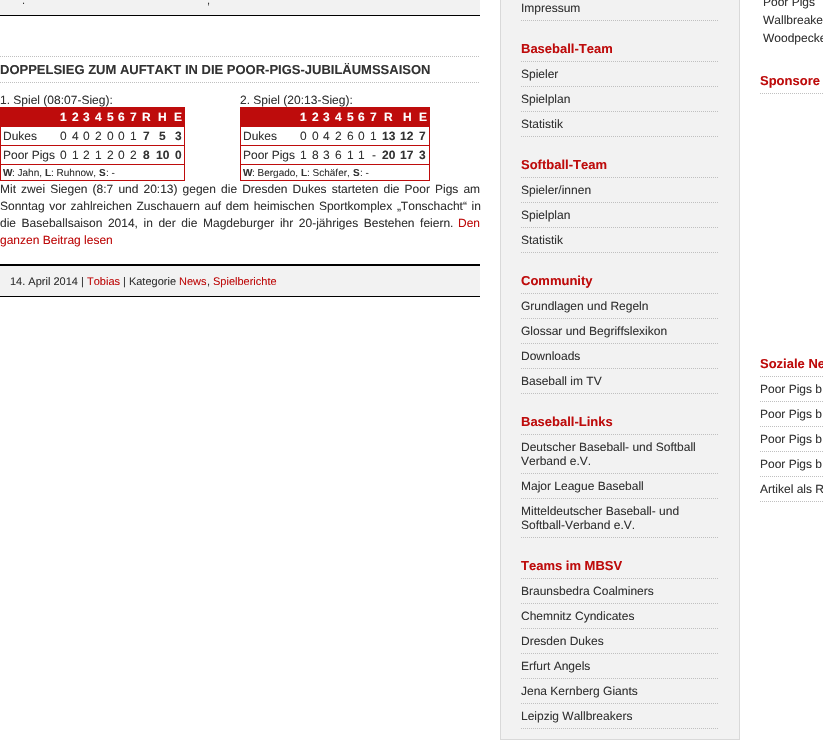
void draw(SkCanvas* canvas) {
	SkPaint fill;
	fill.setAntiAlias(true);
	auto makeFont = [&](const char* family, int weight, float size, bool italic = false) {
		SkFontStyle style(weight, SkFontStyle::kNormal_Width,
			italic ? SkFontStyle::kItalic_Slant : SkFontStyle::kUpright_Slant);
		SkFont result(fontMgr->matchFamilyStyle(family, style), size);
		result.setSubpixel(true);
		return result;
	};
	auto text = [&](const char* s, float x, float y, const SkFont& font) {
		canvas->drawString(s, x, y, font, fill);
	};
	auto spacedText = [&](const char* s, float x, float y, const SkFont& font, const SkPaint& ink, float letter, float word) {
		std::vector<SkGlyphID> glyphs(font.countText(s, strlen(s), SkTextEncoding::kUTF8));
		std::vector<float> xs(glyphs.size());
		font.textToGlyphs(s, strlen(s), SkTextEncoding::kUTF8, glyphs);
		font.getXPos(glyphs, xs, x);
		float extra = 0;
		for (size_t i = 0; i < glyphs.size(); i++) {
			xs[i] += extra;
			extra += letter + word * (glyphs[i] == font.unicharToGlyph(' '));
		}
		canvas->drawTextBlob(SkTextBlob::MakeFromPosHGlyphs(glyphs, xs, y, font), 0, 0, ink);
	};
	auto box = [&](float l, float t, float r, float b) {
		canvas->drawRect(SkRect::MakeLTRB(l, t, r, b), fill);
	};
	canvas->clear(0xFFFFFFFF);
	fill.setColor(0xFFF2F2F2);
	box(0, 0, 480, 15);
	fill.setColor(0xFF000000);
	box(0, 15, 480, 16);
	fill.setStyle(SkPaint::kStroke_Style);
	fill.setStrokeWidth(1);
	fill.setColor(0xFFC0C0C0);
	fill.setPathEffect(SkDashPathEffect::Make({{1, 1}}, 0));
	canvas->drawPath(SkPathBuilder().moveTo(0, 56.5f).lineTo(480, 56.5f).detach(), fill);
	fill.setPathEffect(nullptr);
	fill.setPathEffect(SkDashPathEffect::Make({{1, 1}}, 0));
	canvas->drawPath(SkPathBuilder().moveTo(0, 82.5f).lineTo(480, 82.5f).detach(), fill);
	fill.setPathEffect(nullptr);
	fill.setStyle(SkPaint::kFill_Style);
	fill.setColor(0xFFBE0C0C);
	box(0, 107, 185, 181);
	fill.setColor(0xFFFFFFFF);
	box(1, 127, 184, 145);
	box(1, 146, 184, 164);
	box(1, 165, 184, 180);
	fill.setColor(0xFFBE0C0C);
	box(240, 107, 430, 181);
	fill.setColor(0xFFFFFFFF);
	box(241, 127, 429, 145);
	box(241, 146, 429, 164);
	box(241, 165, 429, 180);
	fill.setColor(0xFFF2F2F2);
	box(0, 266, 480, 296);
	fill.setColor(0xFF000000);
	box(0, 264, 480, 266);
	box(0, 296, 480, 297);
	fill.setColor(0xFFF2F2F2);
	box(501, 0, 739, 739);
	fill.setColor(0xFFD9D9D9);
	box(739, 0, 740, 740);
	box(500, 739, 740, 740);
	box(500, 0, 501, 740);
	fill.setStyle(SkPaint::kStroke_Style);
	fill.setColor(0xFFC0C0C0);
	fill.setPathEffect(SkDashPathEffect::Make({{1, 1}}, 0));
	canvas->drawPath(SkPathBuilder().moveTo(521, 20.5f).lineTo(719, 20.5f).detach(), fill);
	fill.setPathEffect(nullptr);
	fill.setPathEffect(SkDashPathEffect::Make({{1, 1}}, 0));
	canvas->drawPath(SkPathBuilder().moveTo(521, 61.5f).lineTo(719, 61.5f).detach(), fill);
	fill.setPathEffect(nullptr);
	fill.setPathEffect(SkDashPathEffect::Make({{1, 1}}, 0));
	canvas->drawPath(SkPathBuilder().moveTo(521, 86.5f).lineTo(719, 86.5f).detach(), fill);
	fill.setPathEffect(nullptr);
	fill.setPathEffect(SkDashPathEffect::Make({{1, 1}}, 0));
	canvas->drawPath(SkPathBuilder().moveTo(521, 111.5f).lineTo(719, 111.5f).detach(), fill);
	fill.setPathEffect(nullptr);
	fill.setPathEffect(SkDashPathEffect::Make({{1, 1}}, 0));
	canvas->drawPath(SkPathBuilder().moveTo(521, 136.5f).lineTo(719, 136.5f).detach(), fill);
	fill.setPathEffect(nullptr);
	fill.setPathEffect(SkDashPathEffect::Make({{1, 1}}, 0));
	canvas->drawPath(SkPathBuilder().moveTo(521, 177.5f).lineTo(719, 177.5f).detach(), fill);
	fill.setPathEffect(nullptr);
	fill.setPathEffect(SkDashPathEffect::Make({{1, 1}}, 0));
	canvas->drawPath(SkPathBuilder().moveTo(521, 202.5f).lineTo(719, 202.5f).detach(), fill);
	fill.setPathEffect(nullptr);
	fill.setPathEffect(SkDashPathEffect::Make({{1, 1}}, 0));
	canvas->drawPath(SkPathBuilder().moveTo(521, 227.5f).lineTo(719, 227.5f).detach(), fill);
	fill.setPathEffect(nullptr);
	fill.setPathEffect(SkDashPathEffect::Make({{1, 1}}, 0));
	canvas->drawPath(SkPathBuilder().moveTo(521, 252.5f).lineTo(719, 252.5f).detach(), fill);
	fill.setPathEffect(nullptr);
	fill.setPathEffect(SkDashPathEffect::Make({{1, 1}}, 0));
	canvas->drawPath(SkPathBuilder().moveTo(521, 293.5f).lineTo(719, 293.5f).detach(), fill);
	fill.setPathEffect(nullptr);
	fill.setPathEffect(SkDashPathEffect::Make({{1, 1}}, 0));
	canvas->drawPath(SkPathBuilder().moveTo(521, 318.5f).lineTo(719, 318.5f).detach(), fill);
	fill.setPathEffect(nullptr);
	fill.setPathEffect(SkDashPathEffect::Make({{1, 1}}, 0));
	canvas->drawPath(SkPathBuilder().moveTo(521, 343.5f).lineTo(719, 343.5f).detach(), fill);
	fill.setPathEffect(nullptr);
	fill.setPathEffect(SkDashPathEffect::Make({{1, 1}}, 0));
	canvas->drawPath(SkPathBuilder().moveTo(521, 368.5f).lineTo(719, 368.5f).detach(), fill);
	fill.setPathEffect(nullptr);
	fill.setPathEffect(SkDashPathEffect::Make({{1, 1}}, 0));
	canvas->drawPath(SkPathBuilder().moveTo(521, 393.5f).lineTo(719, 393.5f).detach(), fill);
	fill.setPathEffect(nullptr);
	fill.setPathEffect(SkDashPathEffect::Make({{1, 1}}, 0));
	canvas->drawPath(SkPathBuilder().moveTo(521, 434.5f).lineTo(719, 434.5f).detach(), fill);
	fill.setPathEffect(nullptr);
	fill.setPathEffect(SkDashPathEffect::Make({{1, 1}}, 0));
	canvas->drawPath(SkPathBuilder().moveTo(521, 473.5f).lineTo(719, 473.5f).detach(), fill);
	fill.setPathEffect(nullptr);
	fill.setPathEffect(SkDashPathEffect::Make({{1, 1}}, 0));
	canvas->drawPath(SkPathBuilder().moveTo(521, 498.5f).lineTo(719, 498.5f).detach(), fill);
	fill.setPathEffect(nullptr);
	fill.setPathEffect(SkDashPathEffect::Make({{1, 1}}, 0));
	canvas->drawPath(SkPathBuilder().moveTo(521, 537.5f).lineTo(719, 537.5f).detach(), fill);
	fill.setPathEffect(nullptr);
	fill.setPathEffect(SkDashPathEffect::Make({{1, 1}}, 0));
	canvas->drawPath(SkPathBuilder().moveTo(521, 578.5f).lineTo(719, 578.5f).detach(), fill);
	fill.setPathEffect(nullptr);
	fill.setPathEffect(SkDashPathEffect::Make({{1, 1}}, 0));
	canvas->drawPath(SkPathBuilder().moveTo(521, 603.5f).lineTo(719, 603.5f).detach(), fill);
	fill.setPathEffect(nullptr);
	fill.setPathEffect(SkDashPathEffect::Make({{1, 1}}, 0));
	canvas->drawPath(SkPathBuilder().moveTo(521, 628.5f).lineTo(719, 628.5f).detach(), fill);
	fill.setPathEffect(nullptr);
	fill.setPathEffect(SkDashPathEffect::Make({{1, 1}}, 0));
	canvas->drawPath(SkPathBuilder().moveTo(521, 653.5f).lineTo(719, 653.5f).detach(), fill);
	fill.setPathEffect(nullptr);
	fill.setPathEffect(SkDashPathEffect::Make({{1, 1}}, 0));
	canvas->drawPath(SkPathBuilder().moveTo(521, 678.5f).lineTo(719, 678.5f).detach(), fill);
	fill.setPathEffect(nullptr);
	fill.setPathEffect(SkDashPathEffect::Make({{1, 1}}, 0));
	canvas->drawPath(SkPathBuilder().moveTo(521, 703.5f).lineTo(719, 703.5f).detach(), fill);
	fill.setPathEffect(nullptr);
	fill.setPathEffect(SkDashPathEffect::Make({{1, 1}}, 0));
	canvas->drawPath(SkPathBuilder().moveTo(521, 728.5f).lineTo(719, 728.5f).detach(), fill);
	fill.setPathEffect(nullptr);
	fill.setPathEffect(SkDashPathEffect::Make({{1, 1}}, 0));
	canvas->drawPath(SkPathBuilder().moveTo(760, 93.5f).lineTo(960, 93.5f).detach(), fill);
	fill.setPathEffect(nullptr);
	fill.setPathEffect(SkDashPathEffect::Make({{1, 1}}, 0));
	canvas->drawPath(SkPathBuilder().moveTo(760, 376.5f).lineTo(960, 376.5f).moveTo(760, 401.5f).lineTo(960, 401.5f).moveTo(760, 426.5f).lineTo(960, 426.5f).detach(), fill);
	fill.setPathEffect(nullptr);
	fill.setPathEffect(SkDashPathEffect::Make({{1, 1}}, 0));
	canvas->drawPath(SkPathBuilder().moveTo(760, 451.5f).lineTo(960, 451.5f).moveTo(760, 476.5f).lineTo(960, 476.5f).moveTo(760, 501.5f).lineTo(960, 501.5f).detach(), fill);
	fill.setPathEffect(nullptr);
	auto font1 = makeFont("Liberation Sans", 400, 11);
	fill.setStyle(SkPaint::kFill_Style);
	fill.setColor(0xFF333333);
	text(".", 22, 4, font1);
	text(",", 207, 4, font1);
	auto font2 = makeFont("Liberation Sans", 700, 13);
	text("DOPPELSIEG ZUM AUFTAKT IN DIE POOR-PIGS-JUBILÄUMSSAISON", 0, 74, font2);
	auto font3 = makeFont("Liberation Sans", 400, 12);
	text("1. Spiel (08:07-Sieg):", 0, 104, font3);
	auto font4 = makeFont("Liberation Sans", 700, 12);
	fill.setColor(0xFFFFFFFF);
	text("1", 60, 121, font4);
	text("2", 72, 121, font4);
	text("3", 83, 121, font4);
	text("4", 95, 121, font4);
	text("5", 107, 121, font4);
	text("6", 118, 121, font4);
	text("7", 130, 121, font4);
	text("R", 142, 121, font4);
	text("H", 158, 121, font4);
	text("E", 174, 121, font4);
	fill.setColor(0xFF333333);
	text("Dukes", 3, 140, font3);
	text("0", 60, 140, font3);
	text("4", 72, 140, font3);
	text("0", 83, 140, font3);
	text("2", 95, 140, font3);
	text("0", 107, 140, font3);
	text("0", 118, 140, font3);
	text("1", 130, 140, font3);
	text("7", 143, 140, font4);
	text("5", 159, 140, font4);
	text("3", 175, 140, font4);
	text("Poor Pigs", 3, 159, font3);
	text("0", 60, 159, font3);
	text("1", 72, 159, font3);
	text("2", 83, 159, font3);
	text("1", 95, 159, font3);
	text("2", 107, 159, font3);
	text("0", 118, 159, font3);
	text("2", 130, 159, font3);
	text("8", 143, 159, font4);
	text("10", 156, 159, font4);
	text("0", 175, 159, font4);
	auto font5 = makeFont("Liberation Sans", 700, 10);
	text("W", 3, 176, font5);
	auto font6 = makeFont("Liberation Sans", 400, 10);
	text(": Jahn,", 12, 176, font6);
	text("L", 45, 176, font5);
	text(": Ruhnow,", 51, 176, font6);
	text("S", 99, 176, font5);
	text(": -", 106, 176, font6);
	text("2. Spiel (20:13-Sieg):", 240, 104, font3);
	fill.setColor(0xFFFFFFFF);
	text("1", 300, 121, font4);
	text("2", 312, 121, font4);
	text("3", 323, 121, font4);
	text("4", 335, 121, font4);
	text("5", 347, 121, font4);
	text("6", 358, 121, font4);
	text("7", 370, 121, font4);
	text("R", 384, 121, font4);
	text("H", 403, 121, font4);
	text("E", 419, 121, font4);
	fill.setColor(0xFF333333);
	text("Dukes", 243, 140, font3);
	text("0", 300, 140, font3);
	text("0", 312, 140, font3);
	text("4", 323, 140, font3);
	text("2", 335, 140, font3);
	text("6", 347, 140, font3);
	text("0", 358, 140, font3);
	text("1", 370, 140, font3);
	text("13", 382, 140, font4);
	text("12", 400, 140, font4);
	text("7", 419, 140, font4);
	text("Poor Pigs", 243, 159, font3);
	text("1", 300, 159, font3);
	text("8", 312, 159, font3);
	text("3", 323, 159, font3);
	text("6", 335, 159, font3);
	text("1", 347, 159, font3);
	text("1", 358, 159, font3);
	text("-", 372, 159, font3);
	text("20", 382, 159, font4);
	text("17", 400, 159, font4);
	text("3", 419, 159, font4);
	text("W", 243, 176, font5);
	text(": Bergado,", 252, 176, font6);
	text("L", 301, 176, font5);
	text(": Schäfer,", 307, 176, font6);
	text("S", 353, 176, font5);
	text(": -", 360, 176, font6);
	spacedText("Mit zwei Siegen (8:7 und 20:13) gegen die Dresden Dukes starteten die Poor Pigs am", 0, 193, font3, fill, 0, 1.75f);
	spacedText("Sonntag vor zahlreichen Zuschauern auf dem heimischen Sportkomplex „Tonschacht“ in", 0, 210, font3, fill, 0, 1.25f);
	spacedText("die Baseballsaison 2014, in der die Magdeburger ihr 20-jähriges Bestehen feiern.", 0, 227, font3, fill, 0, 2.25f);
	fill.setColor(0xFFBE0C0C);
	text("Den", 458, 227, font3);
	text("ganzen Beitrag lesen", 0, 244, font3);
	fill.setColor(0xFF333333);
	text("14. April 2014 |", 10, 285, font1);
	fill.setColor(0xFFBE0C0C);
	text("Tobias", 87, 285, font1);
	fill.setColor(0xFF333333);
	text("| Kategorie", 123, 285, font1);
	fill.setColor(0xFFBE0C0C);
	text("News", 179, 285, font1);
	fill.setColor(0xFF333333);
	text(",", 207, 285, font1);
	fill.setColor(0xFFBE0C0C);
	text("Spielberichte", 213, 285, font1);
	fill.setColor(0xFF333333);
	text("Impressum", 521, 12, font3);
	fill.setColor(0xFFBE0C0C);
	text("Baseball-Team", 521, 53, font2);
	fill.setColor(0xFF333333);
	text("Spieler", 521, 78, font3);
	text("Spielplan", 521, 103, font3);
	text("Statistik", 521, 128, font3);
	fill.setColor(0xFFBE0C0C);
	text("Softball-Team", 521, 169, font2);
	fill.setColor(0xFF333333);
	text("Spieler/innen", 521, 194, font3);
	text("Spielplan", 521, 219, font3);
	text("Statistik", 521, 244, font3);
	fill.setColor(0xFFBE0C0C);
	text("Community", 521, 285, font2);
	fill.setColor(0xFF333333);
	text("Grundlagen und Regeln", 521, 310, font3);
	text("Glossar und Begriffslexikon", 521, 335, font3);
	text("Downloads", 521, 360, font3);
	text("Baseball im TV", 521, 385, font3);
	fill.setColor(0xFFBE0C0C);
	text("Baseball-Links", 521, 426, font2);
	fill.setColor(0xFF333333);
	text("Deutscher Baseball- und Softball", 521, 451, font3);
	text("Verband e.V.", 521, 465, font3);
	text("Major League Baseball", 521, 490, font3);
	text("Mitteldeutscher Baseball- und", 521, 515, font3);
	text("Softball-Verband e.V.", 521, 529, font3);
	fill.setColor(0xFFBE0C0C);
	text("Teams im MBSV", 521, 570, font2);
	fill.setColor(0xFF333333);
	text("Braunsbedra Coalminers", 521, 595, font3);
	text("Chemnitz Cyndicates", 521, 620, font3);
	text("Dresden Dukes", 521, 645, font3);
	text("Erfurt Angels", 521, 670, font3);
	text("Jena Kernberg Giants", 521, 695, font3);
	text("Leipzig Wallbreakers", 521, 720, font3);
	text("Poor Pigs", 763, 6, font3);
	text("Wallbreake", 763, 24, font3);
	text("Woodpecke", 763, 42, font3);
	fill.setColor(0xFFBE0C0C);
	text("Sponsore", 760, 85, font2);
	text("Soziale Ne", 760, 368, font2);
	fill.setColor(0xFF333333);
	text("Poor Pigs b", 760, 393, font3);
	text("Poor Pigs b", 760, 418, font3);
	text("Poor Pigs b", 760, 443, font3);
	text("Poor Pigs b", 760, 468, font3);
	text("Artikel als R", 760, 493, font3);
}
